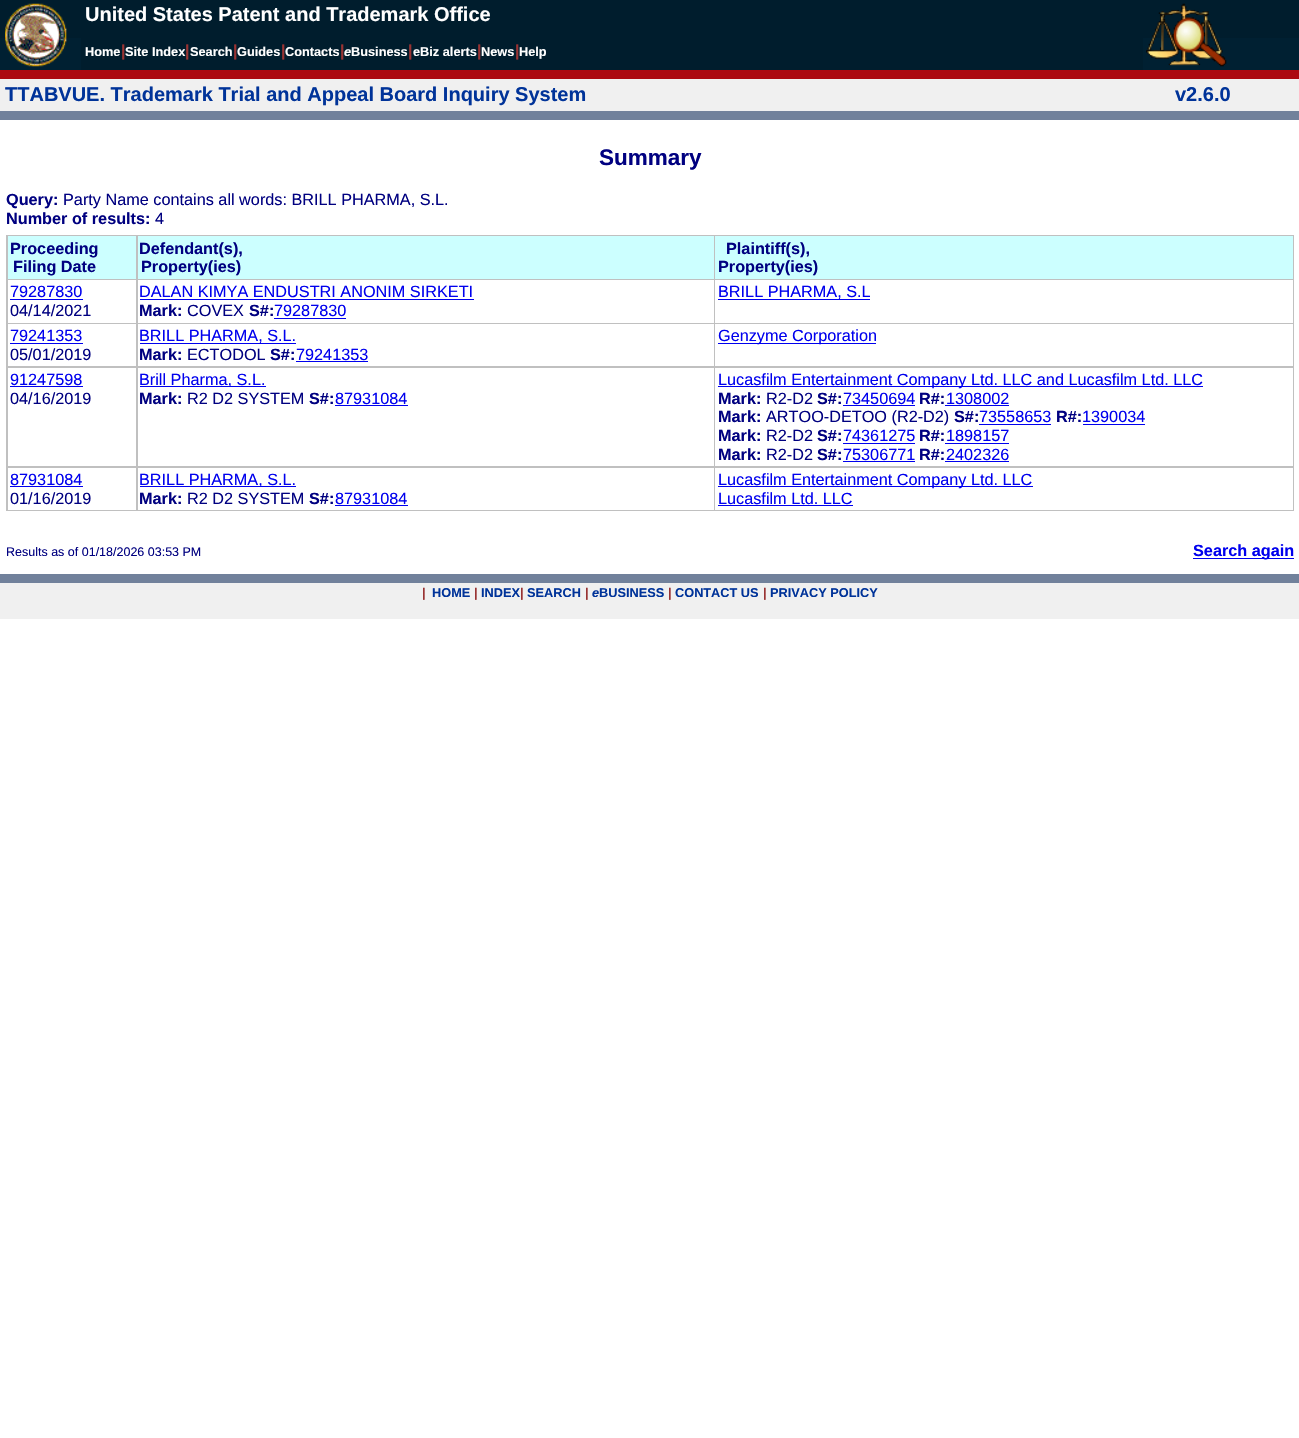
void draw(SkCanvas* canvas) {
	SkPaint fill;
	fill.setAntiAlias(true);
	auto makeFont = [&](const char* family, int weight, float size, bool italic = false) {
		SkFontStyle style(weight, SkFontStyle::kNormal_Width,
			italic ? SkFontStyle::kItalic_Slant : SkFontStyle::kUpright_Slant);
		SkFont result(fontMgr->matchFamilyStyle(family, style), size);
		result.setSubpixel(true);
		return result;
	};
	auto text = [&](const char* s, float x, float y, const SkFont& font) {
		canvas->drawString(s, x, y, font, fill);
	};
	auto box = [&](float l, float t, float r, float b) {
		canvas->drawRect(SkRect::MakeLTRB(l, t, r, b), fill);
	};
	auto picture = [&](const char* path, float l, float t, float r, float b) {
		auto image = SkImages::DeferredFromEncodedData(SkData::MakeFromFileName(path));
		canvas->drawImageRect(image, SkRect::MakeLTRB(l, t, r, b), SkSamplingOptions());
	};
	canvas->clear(0xFFFFFFFF);
	fill.setColor(0xFF001D2D);
	box(0, 0, 1299, 38);
	fill.setColor(0xFF002032);
	box(0, 38, 1299, 70);
	picture("image0.png", 5, 3, 67, 67);
	picture("image1.png", 1146, 3, 1227, 67);
	fill.setColor(0xFF001D2D);
	box(81, 38, 1143, 70);
	fill.setColor(0xFFAC0911);
	box(0, 70, 1299, 79);
	fill.setColor(0xFFF0F0F0);
	box(0, 79, 1299, 111);
	fill.setColor(0xFF71819B);
	box(0, 111, 1299, 120);
	fill.setColor(0xFFC0C0C0);
	box(6, 235, 1294, 511);
	fill.setColor(0xFFCCFFFF);
	box(8, 236, 136, 279);
	box(138, 236, 714, 279);
	box(715, 236, 1293, 279);
	fill.setColor(0xFFFFFFFF);
	box(8, 280, 136, 323);
	fill.setColor(0xFF0000EE);
	box(10, 299, 83, 300);
	fill.setColor(0xFFFFFFFF);
	box(138, 280, 714, 323);
	fill.setColor(0xFF0000EE);
	box(140, 299, 474, 300);
	box(274, 318, 346, 319);
	fill.setColor(0xFFFFFFFF);
	box(715, 280, 1293, 323);
	fill.setColor(0xFF0000EE);
	box(718, 299, 870, 300);
	fill.setColor(0xFFFFFFFF);
	box(8, 324, 136, 366);
	fill.setColor(0xFF0000EE);
	box(10, 343, 83, 344);
	fill.setColor(0xFFFFFFFF);
	box(138, 324, 714, 366);
	fill.setColor(0xFF0000EE);
	box(140, 343, 296, 344);
	box(296, 361, 368, 362);
	fill.setColor(0xFFFFFFFF);
	box(715, 324, 1293, 366);
	fill.setColor(0xFF0000EE);
	box(718, 343, 876, 344);
	fill.setColor(0xFFFFFFFF);
	box(8, 368, 136, 466);
	fill.setColor(0xFF0000EE);
	box(10, 386, 83, 387);
	fill.setColor(0xFFFFFFFF);
	box(138, 368, 714, 466);
	fill.setColor(0xFF0000EE);
	box(140, 386, 266, 387);
	box(335, 405, 408, 406);
	fill.setColor(0xFFFFFFFF);
	box(715, 368, 1293, 466);
	fill.setColor(0xFF0000EE);
	box(718, 386, 1203, 387);
	box(843, 405, 915, 406);
	box(945, 405, 1009, 406);
	box(979, 424, 1051, 425);
	box(1083, 424, 1145, 425);
	box(843, 443, 915, 444);
	box(945, 443, 1009, 444);
	box(843, 461, 915, 462);
	box(945, 461, 1009, 462);
	fill.setColor(0xFFFFFFFF);
	box(8, 468, 136, 510);
	fill.setColor(0xFF0000EE);
	box(10, 486, 83, 487);
	fill.setColor(0xFFFFFFFF);
	box(138, 468, 714, 510);
	fill.setColor(0xFF0000EE);
	box(140, 486, 296, 487);
	box(335, 505, 408, 506);
	fill.setColor(0xFFFFFFFF);
	box(715, 468, 1293, 510);
	fill.setColor(0xFF0000EE);
	box(718, 486, 1033, 487);
	box(718, 505, 853, 506);
	box(1193, 558, 1294, 559);
	fill.setColor(0xFF71819B);
	box(0, 574, 1299, 583);
	fill.setColor(0xFFF0F0F0);
	box(0, 583, 1299, 619);
	auto font1 = makeFont("Liberation Sans", 700, 20);
	fill.setColor(0xFFFFFFFF);
	text("United States Patent and Trademark Office", 85, 21, font1);
	auto font2 = makeFont("Liberation Sans", 700, 12.75f);
	text("Home", 85, 56, font2);
	auto font3 = makeFont("Liberation Sans", 700, 16);
	fill.setColor(0xFF993333);
	text("|", 121, 56, font3);
	fill.setColor(0xFFFFFFFF);
	text("Site Index", 125, 56, font2);
	fill.setColor(0xFF993333);
	text("|", 185, 56, font3);
	fill.setColor(0xFFFFFFFF);
	text("Search", 190, 56, font2);
	fill.setColor(0xFF993333);
	text("|", 233, 56, font3);
	fill.setColor(0xFFFFFFFF);
	text("Guides", 237, 56, font2);
	fill.setColor(0xFF993333);
	text("|", 281, 56, font3);
	fill.setColor(0xFFFFFFFF);
	text("Contacts", 285, 56, font2);
	fill.setColor(0xFF993333);
	text("|", 340, 56, font3);
	auto font4 = makeFont("Liberation Sans", 700, 12.75f, true);
	fill.setColor(0xFFFFFFFF);
	text("e", 344, 56, font4);
	text("Business", 351, 56, font2);
	fill.setColor(0xFF993333);
	text("|", 408, 56, font3);
	fill.setColor(0xFFFFFFFF);
	text("eBiz alerts", 413, 56, font2);
	fill.setColor(0xFF993333);
	text("|", 477, 56, font3);
	fill.setColor(0xFFFFFFFF);
	text("News", 481, 56, font2);
	fill.setColor(0xFF993333);
	text("|", 515, 56, font3);
	fill.setColor(0xFFFFFFFF);
	text("Help", 519, 56, font2);
	fill.setColor(0xFF003399);
	text("TTABVUE. Trademark Trial and Appeal Board Inquiry System", 5, 101, font1);
	text("v2.6.0", 1175, 101, font1);
	auto font5 = makeFont("Liberation Sans", 700, 22.5f);
	fill.setColor(0xFF000080);
	text("Summary", 599, 165, font5);
	auto font6 = makeFont("Liberation Sans", 700, 16.25f);
	text("Query:", 6, 205, font6);
	auto font7 = makeFont("Liberation Sans", 400, 16.25f);
	text("Party Name contains all words: BRILL PHARMA, S.L.", 63, 205, font7);
	text("Number of results:", 6, 224, font6);
	text("4", 155, 224, font7);
	text("Proceeding", 10, 254, font6);
	text("Filing Date", 13, 272, font6);
	text("Defendant(s),", 139, 254, font6);
	text("Property(ies)", 141, 272, font6);
	text("Plaintiff(s),", 726, 254, font6);
	text("Property(ies)", 718, 272, font6);
	fill.setColor(0xFF0000EE);
	text("79287830", 10, 297, font7);
	fill.setColor(0xFF000080);
	text("04/14/2021", 10, 316, font7);
	fill.setColor(0xFF0000EE);
	text("DALAN KIMYA ENDUSTRI ANONIM SIRKETI", 139, 297, font7);
	fill.setColor(0xFF000080);
	text("Mark:", 139, 316, font6);
	text("COVEX", 187, 316, font7);
	text("S#:", 249, 316, font6);
	fill.setColor(0xFF0000EE);
	text("79287830", 274, 316, font7);
	text("BRILL PHARMA, S.L", 718, 297, font7);
	text("79241353", 10, 341, font7);
	fill.setColor(0xFF000080);
	text("05/01/2019", 10, 360, font7);
	fill.setColor(0xFF0000EE);
	text("BRILL PHARMA, S.L.", 139, 341, font7);
	fill.setColor(0xFF000080);
	text("Mark:", 139, 360, font6);
	text("ECTODOL", 187, 360, font7);
	text("S#:", 270, 360, font6);
	fill.setColor(0xFF0000EE);
	text("79241353", 296, 360, font7);
	text("Genzyme Corporation", 718, 341, font7);
	text("91247598", 10, 385, font7);
	fill.setColor(0xFF000080);
	text("04/16/2019", 10, 404, font7);
	fill.setColor(0xFF0000EE);
	text("Brill Pharma, S.L.", 139, 385, font7);
	fill.setColor(0xFF000080);
	text("Mark:", 139, 404, font6);
	text("R2 D2 SYSTEM", 187, 404, font7);
	text("S#:", 309, 404, font6);
	fill.setColor(0xFF0000EE);
	text("87931084", 335, 404, font7);
	text("Lucasfilm Entertainment Company Ltd. LLC and Lucasfilm Ltd. LLC", 718, 385, font7);
	fill.setColor(0xFF000080);
	text("Mark:", 718, 404, font6);
	text("R2-D2", 766, 404, font7);
	text("S#:", 817, 404, font6);
	fill.setColor(0xFF0000EE);
	text("73450694", 843, 404, font7);
	fill.setColor(0xFF000080);
	text("R#:", 919, 404, font6);
	fill.setColor(0xFF0000EE);
	text("1308002", 946, 404, font7);
	fill.setColor(0xFF000080);
	text("Mark:", 718, 422, font6);
	text("ARTOO-DETOO (R2-D2)", 766, 422, font7);
	text("S#:", 954, 422, font6);
	fill.setColor(0xFF0000EE);
	text("73558653", 979, 422, font7);
	fill.setColor(0xFF000080);
	text("R#:", 1056, 422, font6);
	fill.setColor(0xFF0000EE);
	text("1390034", 1082, 422, font7);
	fill.setColor(0xFF000080);
	text("Mark:", 718, 441, font6);
	text("R2-D2", 766, 441, font7);
	text("S#:", 817, 441, font6);
	fill.setColor(0xFF0000EE);
	text("74361275", 843, 441, font7);
	fill.setColor(0xFF000080);
	text("R#:", 919, 441, font6);
	fill.setColor(0xFF0000EE);
	text("1898157", 946, 441, font7);
	fill.setColor(0xFF000080);
	text("Mark:", 718, 460, font6);
	text("R2-D2", 766, 460, font7);
	text("S#:", 817, 460, font6);
	fill.setColor(0xFF0000EE);
	text("75306771", 843, 460, font7);
	fill.setColor(0xFF000080);
	text("R#:", 919, 460, font6);
	fill.setColor(0xFF0000EE);
	text("2402326", 946, 460, font7);
	text("87931084", 10, 485, font7);
	fill.setColor(0xFF000080);
	text("01/16/2019", 10, 504, font7);
	fill.setColor(0xFF0000EE);
	text("BRILL PHARMA, S.L.", 139, 485, font7);
	fill.setColor(0xFF000080);
	text("Mark:", 139, 504, font6);
	text("R2 D2 SYSTEM", 187, 504, font7);
	text("S#:", 309, 504, font6);
	fill.setColor(0xFF0000EE);
	text("87931084", 335, 504, font7);
	text("Lucasfilm Entertainment Company Ltd. LLC", 718, 485, font7);
	text("Lucasfilm Ltd. LLC", 718, 504, font7);
	auto font8 = makeFont("Liberation Sans", 400, 12.5f);
	fill.setColor(0xFF000080);
	text("Results as of 01/18/2026 03:53 PM", 6, 556, font8);
	fill.setColor(0xFF0000EE);
	text("Search again", 1193, 556, font6);
	fill.setColor(0xFF993333);
	text("|", 422, 597, font2);
	fill.setColor(0xFF003399);
	text("HOME", 432, 597, font2);
	fill.setColor(0xFF993333);
	text("|", 474, 597, font2);
	fill.setColor(0xFF003399);
	text("INDEX", 481, 597, font2);
	fill.setColor(0xFF993333);
	text("|", 520, 597, font2);
	fill.setColor(0xFF003399);
	text("SEARCH", 527, 597, font2);
	fill.setColor(0xFF993333);
	text("|", 585, 597, font2);
	fill.setColor(0xFF003399);
	text("e", 592, 597, font4);
	text("BUSINESS", 599, 597, font2);
	fill.setColor(0xFF993333);
	text("|", 668, 597, font2);
	fill.setColor(0xFF003399);
	text("CONTACT US", 675, 597, font2);
	fill.setColor(0xFF993333);
	text("|", 763, 597, font2);
	fill.setColor(0xFF003399);
	text("PRIVACY POLICY", 770, 597, font2);
}
